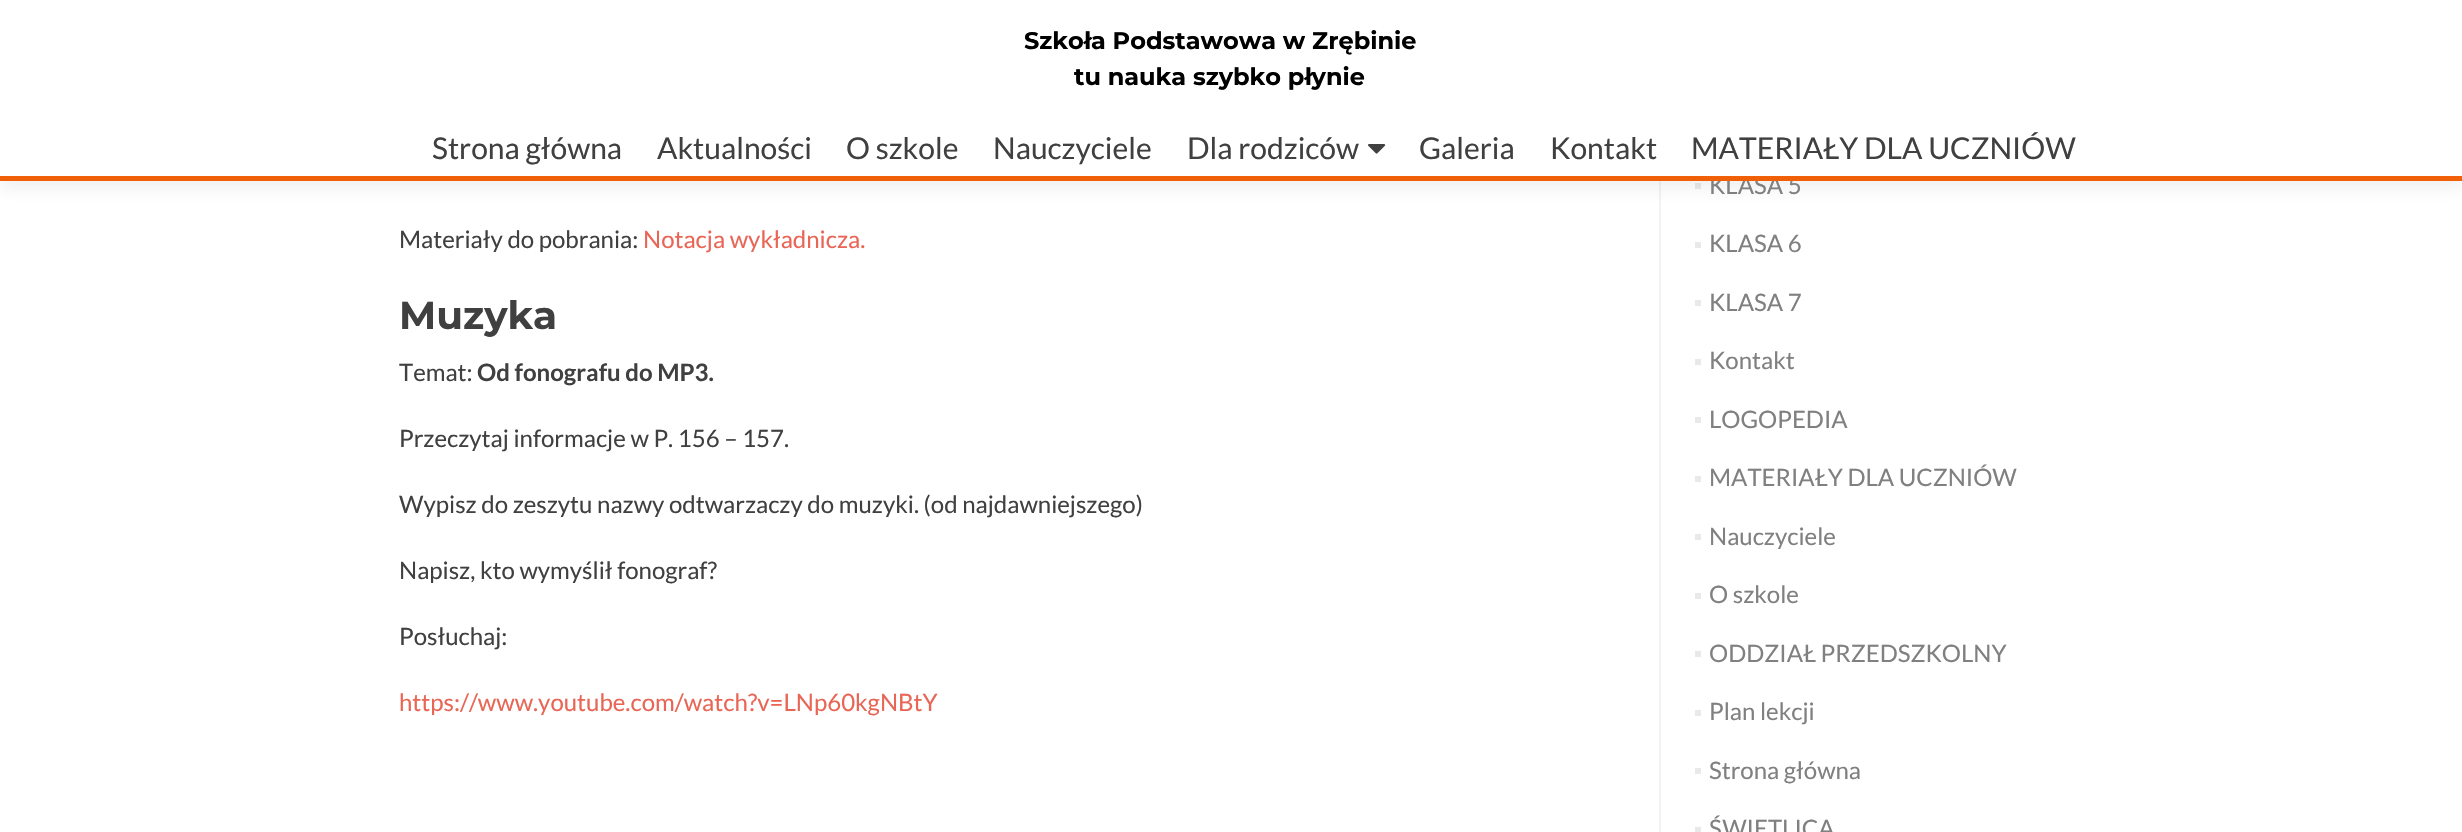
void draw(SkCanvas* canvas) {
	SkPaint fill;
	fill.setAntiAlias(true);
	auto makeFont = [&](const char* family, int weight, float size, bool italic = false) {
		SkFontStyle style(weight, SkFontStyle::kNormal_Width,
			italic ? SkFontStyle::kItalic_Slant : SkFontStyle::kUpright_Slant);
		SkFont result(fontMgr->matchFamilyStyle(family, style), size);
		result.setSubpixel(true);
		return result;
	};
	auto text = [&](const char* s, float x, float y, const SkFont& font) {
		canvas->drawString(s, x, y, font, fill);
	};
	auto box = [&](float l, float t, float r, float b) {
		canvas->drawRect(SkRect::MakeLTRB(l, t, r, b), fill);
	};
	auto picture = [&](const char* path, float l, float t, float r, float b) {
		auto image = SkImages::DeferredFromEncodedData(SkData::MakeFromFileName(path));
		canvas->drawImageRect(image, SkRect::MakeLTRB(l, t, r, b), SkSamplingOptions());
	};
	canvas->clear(0xFFFFFFFF);
	fill.setColor(0xFFF2F2F2);
	box(1659, 181, 1661, 832);
	fill.setColor(0xFFE9E9E9);
	box(1695, 183, 1701, 189);
	fill.setColor(0x14323232);
	fill.setMaskFilter(SkMaskFilter::MakeBlur(kNormal_SkBlurStyle, 8));
	canvas->drawRect(SkRect::MakeLTRB(0, 8, 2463, 188), fill);
	fill.setMaskFilter(nullptr);
	fill.setColor(0xFFFFFFFF);
	box(0, 0, 2462, 176);
	picture("image0.png", 1368, 144, 1386, 154);
	fill.setColor(0xFFE9E9E9);
	box(1695, 242, 1701, 248);
	box(1695, 300, 1701, 306);
	box(1695, 359, 1701, 365);
	box(1695, 417, 1701, 423);
	box(1695, 476, 1701, 482);
	box(1695, 534, 1701, 540);
	box(1695, 593, 1701, 599);
	box(1695, 651, 1701, 657);
	box(1695, 710, 1701, 716);
	box(1695, 768, 1701, 774);
	box(1695, 827, 1701, 832);
	auto font1 = makeFont("Montserrat", 700, 24);
	fill.setColor(0xFF000000);
	text("Szkoła Podstawowa w Zrębinie", 1024, 49, font1);
	text("tu nauka szybko płynie", 1074, 85, font1);
	auto font2 = makeFont("Lato", 400, 30);
	fill.setColor(0xFF404040);
	text("Strona główna", 432, 159, font2);
	text("Aktualności", 657, 159, font2);
	text("O szkole", 846, 159, font2);
	text("Nauczyciele", 993, 159, font2);
	text("Dla rodziców", 1187, 159, font2);
	text("Galeria", 1419, 159, font2);
	text("Kontakt", 1550, 159, font2);
	text("MATERIAŁY DLA UCZNIÓW", 1691, 159, font2);
	auto font3 = makeFont("Lato", 400, 24);
	text("Materiały do pobrania:", 399, 248, font3);
	fill.setColor(0xFFE96656);
	text("Notacja wykładnicza.", 643, 248, font3);
	auto font4 = makeFont("Montserrat", 700, 39);
	fill.setColor(0xFF404040);
	text("Muzyka", 399, 329, font4);
	text("Temat:", 399, 381, font3);
	auto font5 = makeFont("Lato", 700, 24);
	text("Od fonografu do MP3.", 477, 381, font5);
	text("Przeczytaj informacje w P. 156 – 157.", 399, 447, font3);
	text("Wypisz do zeszytu nazwy odtwarzaczy do muzyki. (od najdawniejszego)", 399, 513, font3);
	text("Napisz, kto wymyślił fonograf?", 399, 579, font3);
	text("Posłuchaj:", 399, 645, font3);
	fill.setColor(0xFFE96656);
	text("https://www.youtube.com/watch?v=LNp60kgNBtY", 399, 711, font3);
	fill.setColor(0xFF808080);
	text("KLASA 5", 1709, 194, font3);
	fill.setColor(0xFFEF6009);
	box(0, 176, 2462, 181);
	fill.setColor(0xFF808080);
	text("KLASA 6", 1709, 252, font3);
	text("KLASA 7", 1709, 311, font3);
	text("Kontakt", 1709, 369, font3);
	text("LOGOPEDIA", 1709, 428, font3);
	text("MATERIAŁY DLA UCZNIÓW", 1709, 486, font3);
	text("Nauczyciele", 1709, 545, font3);
	text("O szkole", 1709, 603, font3);
	text("ODDZIAŁ PRZEDSZKOLNY", 1709, 662, font3);
	text("Plan lekcji", 1709, 720, font3);
	text("Strona główna", 1709, 779, font3);
	text("ŚWIETLICA", 1709, 837, font3);
}
